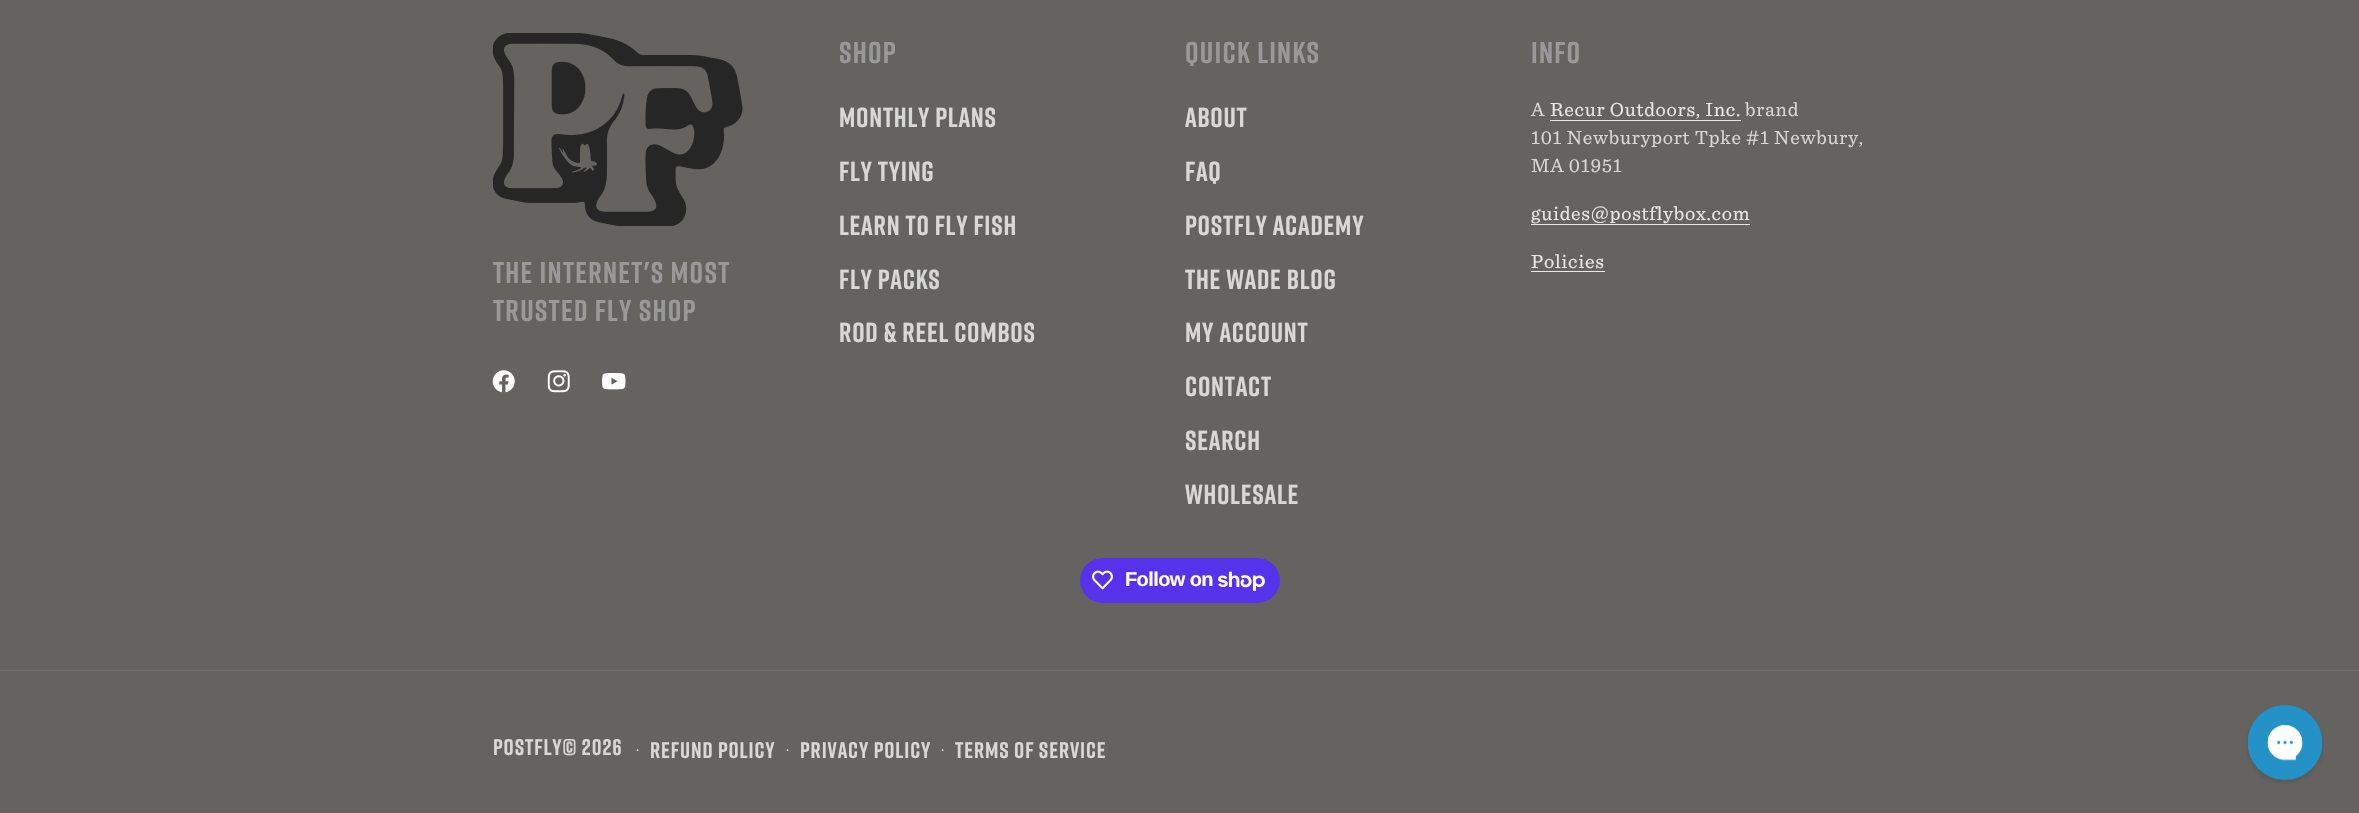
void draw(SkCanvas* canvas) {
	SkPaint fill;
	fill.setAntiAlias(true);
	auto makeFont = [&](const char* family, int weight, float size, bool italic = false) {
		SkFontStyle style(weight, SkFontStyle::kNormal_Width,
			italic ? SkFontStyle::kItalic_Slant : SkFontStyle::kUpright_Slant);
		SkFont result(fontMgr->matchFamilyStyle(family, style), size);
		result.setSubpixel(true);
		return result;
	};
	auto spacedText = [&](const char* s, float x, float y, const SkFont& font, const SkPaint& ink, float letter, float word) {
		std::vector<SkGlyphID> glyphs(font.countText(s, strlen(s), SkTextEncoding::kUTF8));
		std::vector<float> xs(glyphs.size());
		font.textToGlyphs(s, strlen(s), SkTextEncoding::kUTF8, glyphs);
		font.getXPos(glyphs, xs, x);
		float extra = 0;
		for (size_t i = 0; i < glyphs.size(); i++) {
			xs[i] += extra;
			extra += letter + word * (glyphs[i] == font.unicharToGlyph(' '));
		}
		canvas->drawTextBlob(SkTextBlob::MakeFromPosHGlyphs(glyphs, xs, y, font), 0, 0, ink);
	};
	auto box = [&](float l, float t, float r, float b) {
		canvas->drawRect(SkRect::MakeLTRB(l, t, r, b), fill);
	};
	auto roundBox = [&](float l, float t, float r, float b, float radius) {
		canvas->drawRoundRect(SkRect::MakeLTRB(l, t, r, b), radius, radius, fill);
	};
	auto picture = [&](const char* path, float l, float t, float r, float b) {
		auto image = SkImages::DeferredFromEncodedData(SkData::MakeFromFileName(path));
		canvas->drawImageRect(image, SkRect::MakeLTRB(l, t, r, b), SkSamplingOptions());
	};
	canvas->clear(0xFF646360);
	fill.setColor(0xFFE8E8E7);
	box(1550, 120, 1741, 121);
	box(1531, 224, 1750, 225);
	box(1531, 271, 1605, 272);
	picture("image0.png", 493, 33, 743, 226);
	picture("image1.png", 492, 370, 515, 393);
	picture("image2.png", 547, 370, 570, 393);
	picture("image3.png", 602, 373, 626, 390);
	fill.setColor(0xFF5433EB);
	roundBox(1080, 558, 1280, 603, 22.5f);
	picture("image4.png", 1092, 570, 1113, 590);
	picture("image5.png", 1218, 571, 1265, 591);
	fill.setColor(0xFF706F6D);
	box(0, 670, 2359, 671);
	picture("image6.png", 2246, 704, 2324, 784);
	auto font1 = makeFont("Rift", 700, 30);
	fill.setColor(0xFF999999);
	spacedText("SHOP", 839, 63, font1, fill, 1.25f, 0);
	auto font2 = makeFont("Rift", 700, 27.5f);
	fill.setColor(0xFFD8D8D7);
	spacedText("Monthly Plans", 839, 127, font2, fill, 0.75f, 0);
	spacedText("Fly Tying", 839, 181, font2, fill, 0.75f, 0);
	spacedText("Learn To Fly Fish", 839, 235, font2, fill, 0.75f, 0);
	spacedText("Fly Packs", 839, 289, font2, fill, 0.75f, 0);
	spacedText("Rod & Reel Combos", 839, 342, font2, fill, 0.75f, 0);
	fill.setColor(0xFF999999);
	spacedText("Quick links", 1185, 63, font1, fill, 1.25f, 0);
	fill.setColor(0xFFD8D8D7);
	spacedText("About", 1185, 127, font2, fill, 0.75f, 0);
	spacedText("FAQ", 1185, 181, font2, fill, 0.75f, 0);
	spacedText("Postfly Academy", 1185, 235, font2, fill, 0.75f, 0);
	spacedText("The Wade Blog", 1185, 289, font2, fill, 0.75f, 0);
	spacedText("My Account", 1185, 342, font2, fill, 0.75f, 0);
	spacedText("Contact", 1185, 396, font2, fill, 0.75f, 0);
	spacedText("Search", 1185, 450, font2, fill, 0.75f, 0);
	spacedText("Wholesale", 1185, 504, font2, fill, 0.75f, 0);
	fill.setColor(0xFF999999);
	spacedText("INFO", 1531, 63, font1, fill, 1.25f, 0);
	auto font3 = makeFont("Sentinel", 400, 20);
	fill.setColor(0xFFD8D8D7);
	spacedText("A", 1531, 116, font3, fill, 0.75f, 0);
	fill.setColor(0xFFE8E8E7);
	spacedText("Recur Outdoors, Inc.", 1550, 116, font3, fill, 0.75f, 0);
	fill.setColor(0xFFD8D8D7);
	spacedText("brand", 1745, 116, font3, fill, 0.75f, 0);
	spacedText("101 Newburyport Tpke #1 Newbury,", 1531, 144, font3, fill, 0.75f, 0);
	spacedText("MA 01951", 1531, 172, font3, fill, 0.75f, 0);
	fill.setColor(0xFFE8E8E7);
	spacedText("guides@postflybox.com", 1531, 220, font3, fill, 0.75f, 0);
	spacedText("Policies", 1531, 268, font3, fill, 0.75f, 0);
	fill.setColor(0xFF999999);
	spacedText("The Internet's Most", 493, 283, font1, fill, 1.25f, 0);
	spacedText("Trusted Fly Shop", 493, 321, font1, fill, 1.25f, 0);
	auto font4 = makeFont("Liberation Sans", 700, 20);
	fill.setColor(0xFFFFFFFF);
	spacedText("Follow on", 1125, 586, font4, fill, -0.6f, 0);
	auto font5 = makeFont("Rift", 700, 22.5f);
	fill.setColor(0xFFD8D8D7);
	spacedText("Postfly© 2026", 493, 755, font5, fill, 0.9f, 0);
	auto font6 = makeFont("Sentinel", 400, 15);
	spacedText("·", 636, 755, font6, fill, 0.9f, 0);
	spacedText("Refund policy", 650, 758, font5, fill, 0.9f, 0);
	spacedText("·", 786, 755, font6, fill, 0.9f, 0);
	spacedText("Privacy policy", 800, 758, font5, fill, 0.9f, 0);
	spacedText("·", 941, 755, font6, fill, 0.9f, 0);
	spacedText("Terms of service", 955, 758, font5, fill, 0.9f, 0);
}
